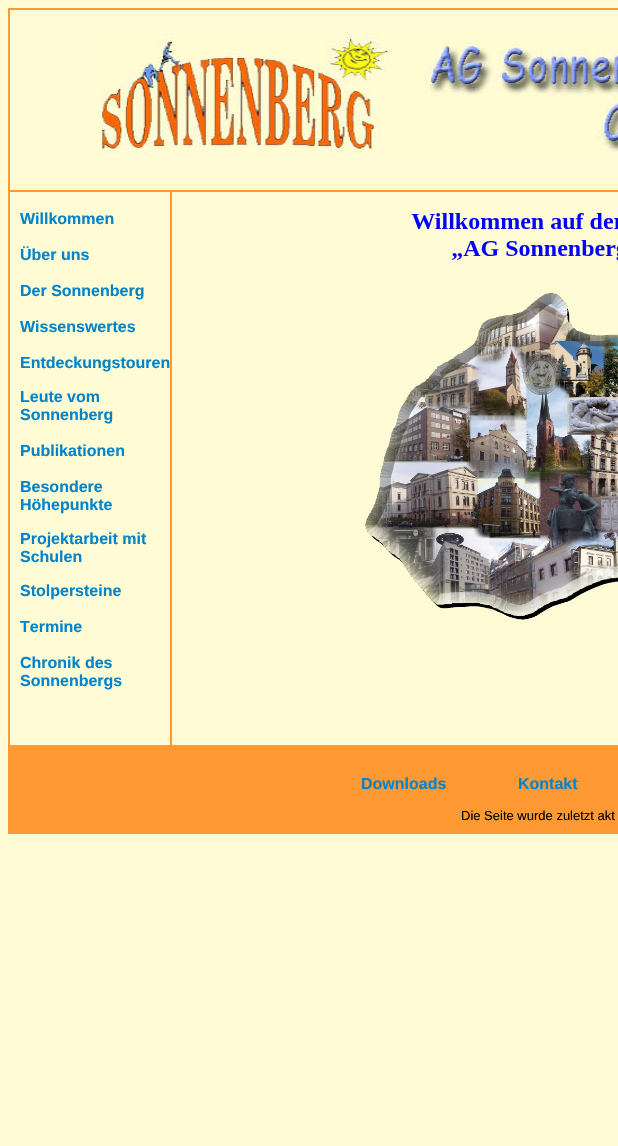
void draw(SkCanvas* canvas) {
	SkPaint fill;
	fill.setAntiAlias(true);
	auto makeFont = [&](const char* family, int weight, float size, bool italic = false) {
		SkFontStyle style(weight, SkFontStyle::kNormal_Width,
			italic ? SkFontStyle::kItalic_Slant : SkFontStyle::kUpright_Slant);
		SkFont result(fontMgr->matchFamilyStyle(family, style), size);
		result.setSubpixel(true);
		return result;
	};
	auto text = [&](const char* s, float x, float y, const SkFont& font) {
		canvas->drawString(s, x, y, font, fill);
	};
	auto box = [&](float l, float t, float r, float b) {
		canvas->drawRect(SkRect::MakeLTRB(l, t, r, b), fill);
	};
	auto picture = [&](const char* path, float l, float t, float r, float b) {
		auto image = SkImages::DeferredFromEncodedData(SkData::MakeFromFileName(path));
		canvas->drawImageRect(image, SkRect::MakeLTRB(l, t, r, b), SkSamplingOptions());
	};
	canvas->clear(0xFFFFFCD5);
	fill.setColor(0xFFFF9933);
	box(8, 8, 618, 834);
	fill.setColor(0xFFFFFCD5);
	box(10, 10, 618, 190);
	picture("image0.png", 101, 34, 618, 154);
	box(10, 192, 170, 745);
	box(172, 192, 618, 745);
	picture("image1.png", 365, 213, 618, 620);
	auto font1 = makeFont("Liberation Sans", 700, 16);
	fill.setColor(0xFF0083CA);
	text("Willkommen", 20, 224, font1);
	text("Über uns", 20, 260, font1);
	text("Der Sonnenberg", 20, 296, font1);
	text("Wissenswertes", 20, 332, font1);
	text("Entdeckungstouren", 20, 368, font1);
	text("Leute vom", 20, 402, font1);
	text("Sonnenberg", 20, 420, font1);
	text("Publikationen", 20, 456, font1);
	text("Besondere", 20, 492, font1);
	text("Höhepunkte", 20, 510, font1);
	text("Projektarbeit mit", 20, 544, font1);
	text("Schulen", 20, 562, font1);
	text("Stolpersteine", 20, 596, font1);
	text("Termine", 20, 632, font1);
	text("Chronik des", 20, 668, font1);
	text("Sonnenbergs", 20, 686, font1);
	text("Downloads", 361, 789, font1);
	text("Kontakt", 518, 789, font1);
	auto font2 = makeFont("Liberation Sans", 400, 13);
	fill.setColor(0xFF000000);
	text("Die Seite wurde zuletzt akt", 461, 820, font2);
}
